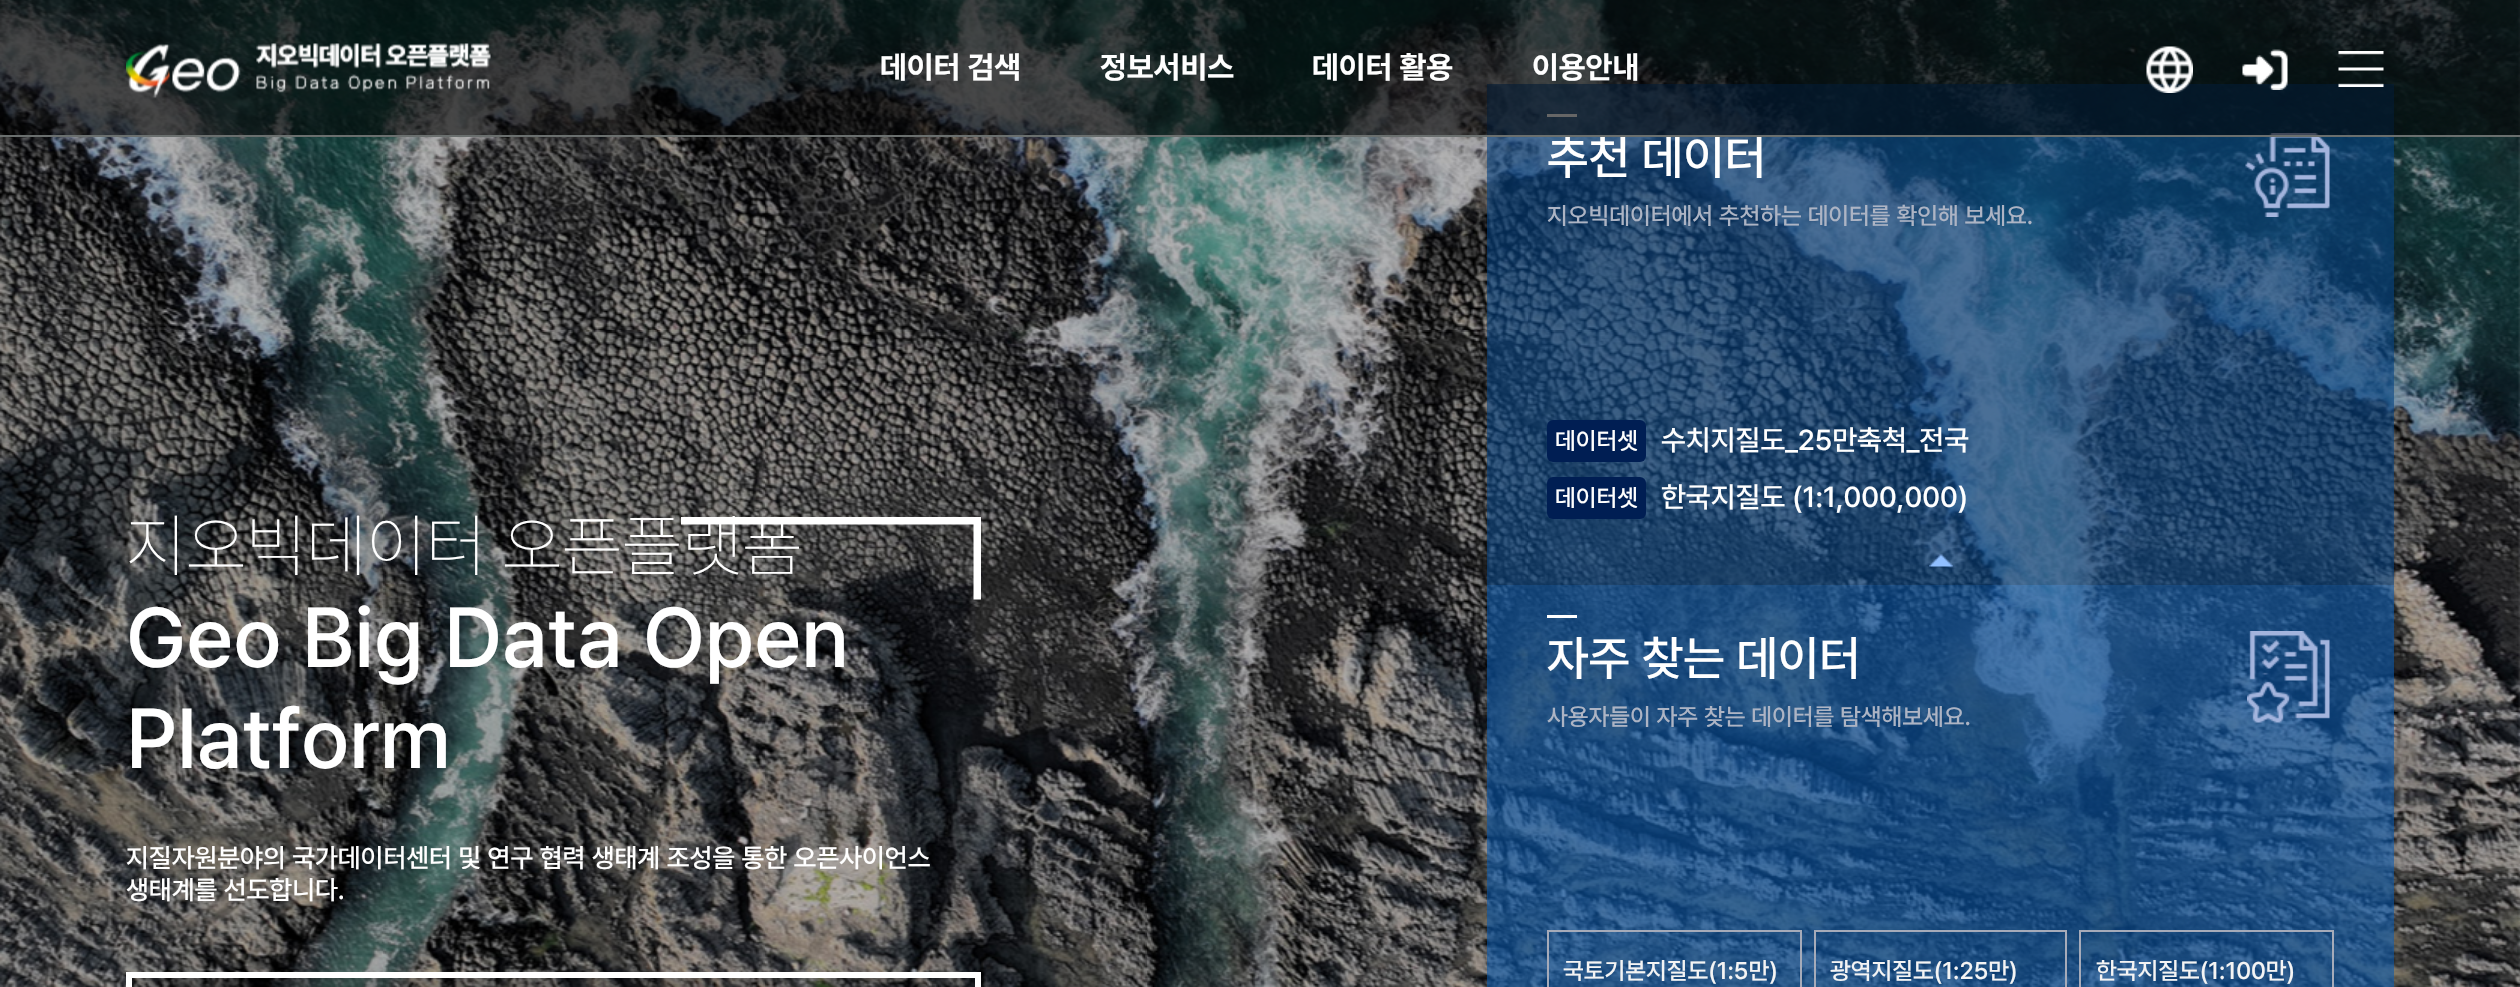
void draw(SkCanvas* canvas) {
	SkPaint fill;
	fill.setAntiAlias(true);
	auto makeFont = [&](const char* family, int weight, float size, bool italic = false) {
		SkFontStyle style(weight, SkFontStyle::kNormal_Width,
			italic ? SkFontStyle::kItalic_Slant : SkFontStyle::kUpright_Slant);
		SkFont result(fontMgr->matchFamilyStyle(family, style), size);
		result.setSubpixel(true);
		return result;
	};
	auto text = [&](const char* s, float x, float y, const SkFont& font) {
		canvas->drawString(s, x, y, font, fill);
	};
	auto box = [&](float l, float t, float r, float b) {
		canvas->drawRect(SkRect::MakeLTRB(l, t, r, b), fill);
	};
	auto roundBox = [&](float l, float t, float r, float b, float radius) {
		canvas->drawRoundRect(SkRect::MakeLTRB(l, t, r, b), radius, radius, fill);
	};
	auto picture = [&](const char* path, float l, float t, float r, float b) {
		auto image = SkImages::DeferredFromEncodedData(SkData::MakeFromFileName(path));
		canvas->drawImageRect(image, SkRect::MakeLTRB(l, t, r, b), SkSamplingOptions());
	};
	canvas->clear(0xFFFFFFFF);
	picture("image0.png", 0, 0, 2520, 987);
	fill.setColor(0x99054383);
	box(1487, 84, 2394, 585);
	fill.setColor(0xFFFFFFFF);
	box(1547, 114, 1577, 117);
	picture("image6.png", 2245, 133, 2330, 217);
	fill.setColor(0x99000000);
	box(0, 0, 2520, 135);
	picture("image1.png", 126, 43, 491, 98);
	picture("image2.png", 2146, 46, 2193, 93);
	picture("image3.png", 2242, 49, 2288, 90);
	picture("image4.png", 2338, 51, 2384, 87);
	fill.setColor(0x33000000);
	canvas->drawRect(SkRect::MakeLTRB(129, 975, 978, 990), fill);
	fill.setStyle(SkPaint::kStroke_Style);
	fill.setStrokeWidth(6);
	fill.setColor(0xFFFFFFFF);
	canvas->drawRect(SkRect::MakeLTRB(129, 975, 978, 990), fill);
	fill.setStyle(SkPaint::kFill_Style);
	fill.setColor(0xFF001E53);
	roundBox(1547, 420, 1646, 462, 6);
	roundBox(1547, 477, 1646, 519, 6);
	picture("image7.png", 1929, 554, 1953, 567);
	fill.setColor(0x990859AE);
	box(1487, 585, 2394, 987);
	fill.setColor(0xFFFFFFFF);
	box(1547, 615, 1577, 618);
	picture("image8.png", 2247, 631, 2330, 723);
	fill.setStyle(SkPaint::kStroke_Style);
	fill.setStrokeWidth(2);
	fill.setColor(0xFFA6ABB9);
	canvas->drawRect(SkRect::MakeLTRB(1548, 931, 1801, 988), fill);
	canvas->drawRect(SkRect::MakeLTRB(1815, 931, 2066, 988), fill);
	canvas->drawRect(SkRect::MakeLTRB(2080, 931, 2333, 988), fill);
	auto font1 = makeFont("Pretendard", 700, 31);
	fill.setStyle(SkPaint::kFill_Style);
	fill.setColor(0xFFFFFFFF);
	text("데이터 검색", 880, 78, font1);
	text("정보서비스", 1100, 78, font1);
	text("데이터 활용", 1312, 78, font1);
	text("이용안내", 1532, 78, font1);
	auto font2 = makeFont("Pretendard", 100, 69.5f);
	text("지오빅데이터 오픈플랫폼", 126, 570, font2);
	picture("image5.png", 681, 517, 981, 600);
	auto font3 = makeFont("Pretendard", 500, 84);
	text("Geo Big Data Open", 126, 667, font3);
	text("Platform", 126, 768, font3);
	auto font4 = makeFont("Pretendard", 500, 26.4f);
	text("지질자원분야의 국가데이터센터 및 연구 협력 생태계 조성을 통한 오픈사이언스", 126, 867, font4);
	text("생태계를 선도합니다.", 126, 899, font4);
	auto font5 = makeFont("Pretendard", 500, 48);
	text("추천 데이터", 1547, 174, font5);
	fill.setColor(0xFF6A6F6E);
	box(0, 135, 2520, 137);
	auto font6 = makeFont("Pretendard", 500, 24);
	fill.setColor(0xFFADB4C4);
	text("지오빅데이터에서 추천하는 데이터를 확인해 보세요.", 1547, 224, font6);
	fill.setColor(0xFFFFFFFF);
	text("데이터셋", 1555, 449, font6);
	auto font7 = makeFont("Pretendard", 500, 28.75f);
	text("수치지질도_25만축척_전국", 1661, 450, font7);
	text("데이터셋", 1555, 506, font6);
	text("한국지질도 (1:1,000,000)", 1661, 507, font7);
	text("자주 찾는 데이터", 1547, 675, font5);
	fill.setColor(0xFFADB4C4);
	text("사용자들이 자주 찾는 데이터를 탐색해보세요.", 1547, 725, font6);
	fill.setColor(0xFFF4F4F4);
	text("국토기본지질도(1:5만)", 1563, 979, font6);
	text("광역지질도(1:25만)", 1830, 979, font6);
	text("한국지질도(1:100만)", 2096, 979, font6);
}
